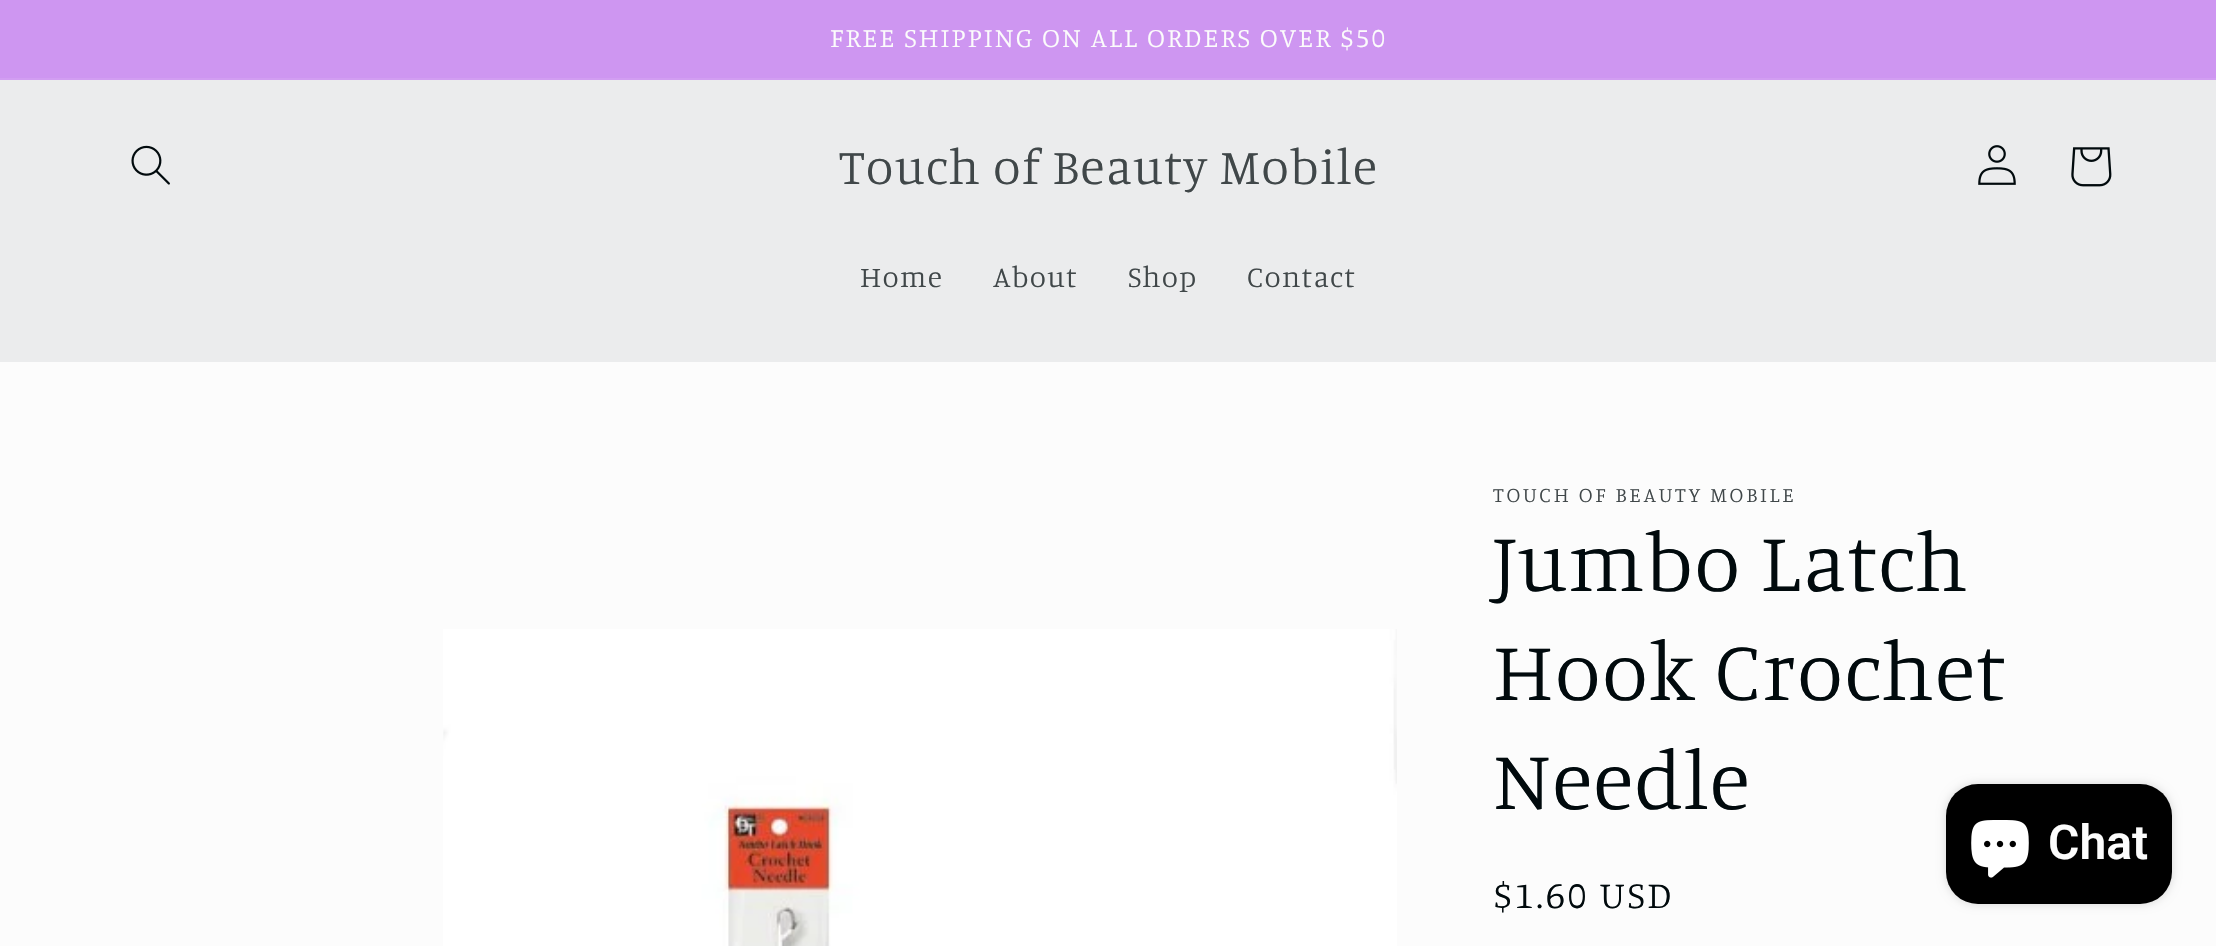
void draw(SkCanvas* canvas) {
	SkPaint fill;
	fill.setAntiAlias(true);
	auto makeFont = [&](const char* family, int weight, float size, bool italic = false) {
		SkFontStyle style(weight, SkFontStyle::kNormal_Width,
			italic ? SkFontStyle::kItalic_Slant : SkFontStyle::kUpright_Slant);
		SkFont result(fontMgr->matchFamilyStyle(family, style), size);
		result.setSubpixel(true);
		return result;
	};
	auto text = [&](const char* s, float x, float y, const SkFont& font) {
		canvas->drawString(s, x, y, font, fill);
	};
	auto spacedText = [&](const char* s, float x, float y, const SkFont& font, const SkPaint& ink, float letter, float word) {
		std::vector<SkGlyphID> glyphs(font.countText(s, strlen(s), SkTextEncoding::kUTF8));
		std::vector<float> xs(glyphs.size());
		font.textToGlyphs(s, strlen(s), SkTextEncoding::kUTF8, glyphs);
		font.getXPos(glyphs, xs, x);
		float extra = 0;
		for (size_t i = 0; i < glyphs.size(); i++) {
			xs[i] += extra;
			extra += letter + word * (glyphs[i] == font.unicharToGlyph(' '));
		}
		canvas->drawTextBlob(SkTextBlob::MakeFromPosHGlyphs(glyphs, xs, y, font), 0, 0, ink);
	};
	auto box = [&](float l, float t, float r, float b) {
		canvas->drawRect(SkRect::MakeLTRB(l, t, r, b), fill);
	};
	auto roundBox = [&](float l, float t, float r, float b, float radius) {
		canvas->drawRoundRect(SkRect::MakeLTRB(l, t, r, b), radius, radius, fill);
	};
	auto picture = [&](const char* path, float l, float t, float r, float b) {
		auto image = SkImages::DeferredFromEncodedData(SkData::MakeFromFileName(path));
		canvas->drawImageRect(image, SkRect::MakeLTRB(l, t, r, b), SkSamplingOptions());
	};
	canvas->clear(0xFFFCFCFC);
	fill.setColor(0xFFCE96F1);
	box(0, 0, 2216, 78);
	fill.setColor(0xFFD29EF2);
	box(0, 78, 2216, 80);
	fill.setColor(0xFFEBECED);
	box(0, 80, 2216, 362);
	picture("image0.png", 131, 145, 170, 185);
	picture("image1.png", 1978, 145, 2016, 185);
	picture("image2.png", 2071, 147, 2112, 187);
	picture("image3.png", 443, 629, 1397, 946);
	fill.setColor(0x26000000);
	fill.setMaskFilter(SkMaskFilter::MakeBlur(kNormal_SkBlurStyle, 5));
	canvas->drawRoundRect(SkRect::MakeLTRB(1946, 784, 2172, 904), 32, 32, fill);
	fill.setMaskFilter(nullptr);
	fill.setColor(0xFF000000);
	roundBox(1946, 784, 2172, 904, 32);
	picture("image4.png", 1971, 820, 2029, 878);
	auto font1 = makeFont("Manuale", 300, 27.3f);
	fill.setColor(0xFFFCFCFC);
	spacedText("FREE SHIPPING ON ALL ORDERS OVER $50", 830, 47, font1, fill, 2.1f, 0);
	auto font2 = makeFont("Manuale", 300, 50.4f);
	fill.setColor(0xFF404749);
	spacedText("Touch of Beauty Mobile", 839, 184, font2, fill, 1.25f, 0);
	auto font3 = makeFont("Manuale", 300, 29.5f);
	spacedText("Home", 860, 287, font3, fill, 1.25f, 0);
	spacedText("About", 993, 287, font3, fill, 1.25f, 0);
	spacedText("Shop", 1128, 287, font3, fill, 1.25f, 0);
	spacedText("Contact", 1247, 287, font3, fill, 1.25f, 0);
	auto font4 = makeFont("Manuale", 300, 21);
	spacedText("TOUCH OF BEAUTY MOBILE", 1493, 502, font4, fill, 2.75f, 0);
	auto font5 = makeFont("Manuale", 300, 84);
	fill.setColor(0xFF010A0D);
	spacedText("Jumbo Latch", 1493, 591, font5, fill, 1.25f, 0);
	spacedText("Hook Crochet", 1493, 700, font5, fill, 1.25f, 0);
	spacedText("Needle", 1493, 809, font5, fill, 1.25f, 0);
	auto font6 = makeFont("Manuale", 300, 38);
	spacedText("$1.60 USD", 1493, 908, font6, fill, 2.75f, 0);
	auto font7 = makeFont("Roboto", 600, 48);
	fill.setColor(0xFFFCFCFC);
	text("Chat", 2048, 859, font7);
}
